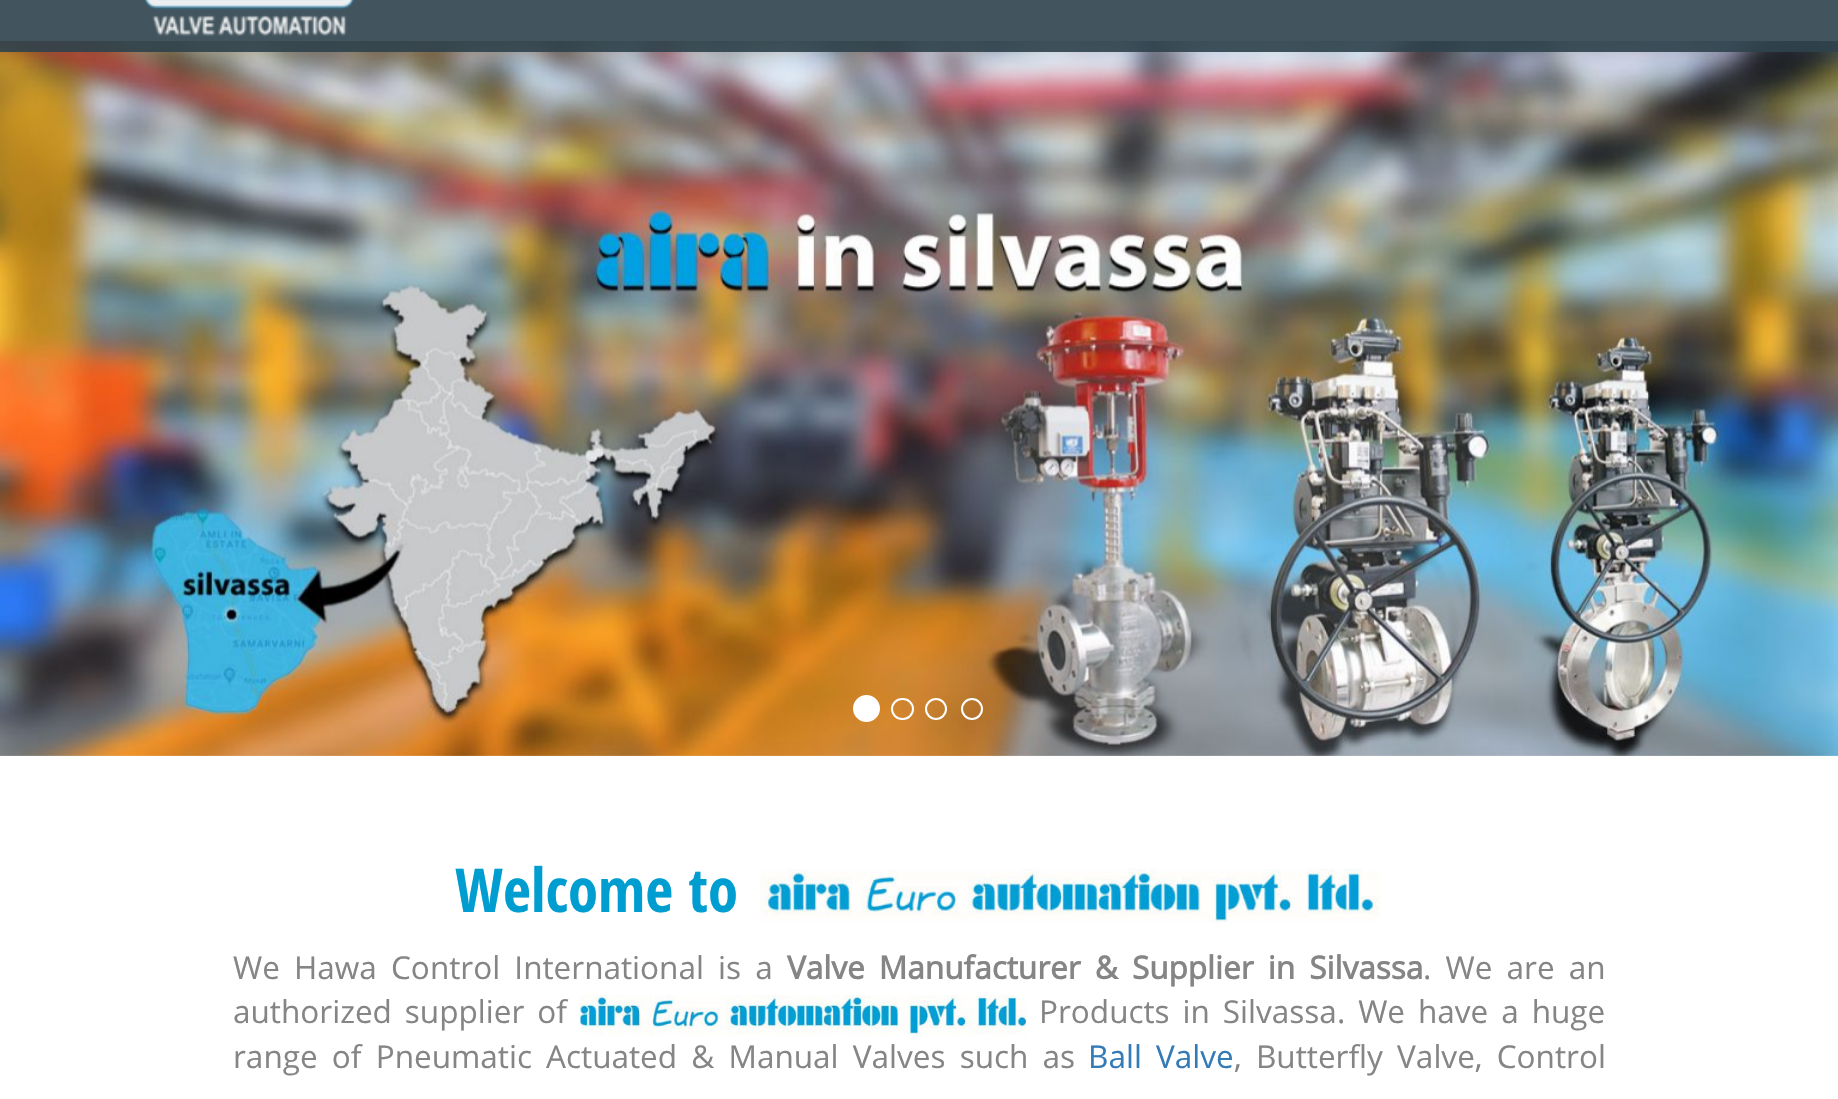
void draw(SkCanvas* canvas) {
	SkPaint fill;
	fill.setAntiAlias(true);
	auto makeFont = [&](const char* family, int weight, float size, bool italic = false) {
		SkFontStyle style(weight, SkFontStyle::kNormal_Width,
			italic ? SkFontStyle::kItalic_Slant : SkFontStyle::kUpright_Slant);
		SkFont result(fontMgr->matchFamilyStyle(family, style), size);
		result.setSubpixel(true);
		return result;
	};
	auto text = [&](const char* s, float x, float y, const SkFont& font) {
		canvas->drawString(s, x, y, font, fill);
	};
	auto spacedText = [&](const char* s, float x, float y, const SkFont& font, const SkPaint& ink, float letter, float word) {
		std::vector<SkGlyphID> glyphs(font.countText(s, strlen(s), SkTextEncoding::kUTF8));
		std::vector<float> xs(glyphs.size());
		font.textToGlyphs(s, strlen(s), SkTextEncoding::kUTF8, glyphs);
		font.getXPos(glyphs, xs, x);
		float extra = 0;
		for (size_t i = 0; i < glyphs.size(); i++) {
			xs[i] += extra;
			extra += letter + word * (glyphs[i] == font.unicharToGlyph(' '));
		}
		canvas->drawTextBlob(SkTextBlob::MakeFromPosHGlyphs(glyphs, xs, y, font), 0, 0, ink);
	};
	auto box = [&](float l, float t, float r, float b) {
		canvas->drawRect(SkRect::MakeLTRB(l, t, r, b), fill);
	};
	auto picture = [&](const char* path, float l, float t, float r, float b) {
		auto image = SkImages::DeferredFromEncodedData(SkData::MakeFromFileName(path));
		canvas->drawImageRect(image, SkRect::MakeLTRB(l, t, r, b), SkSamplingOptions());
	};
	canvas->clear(0xFFFFFFFF);
	picture("image1.png", 0, 41, 1838, 756);
	fill.setColor(0xE62D414B);
	box(0, 0, 1838, 52);
	picture("image0.png", 145, 0, 354, 36);
	fill.setColor(0xFFFFFFFF);
	canvas->drawCircle(866.5f, 708.5f, 12.5f, fill);
	fill.setStyle(SkPaint::kStroke_Style);
	fill.setStrokeWidth(2);
	canvas->drawCircle(866.5f, 708.5f, 12.5f, fill);
	canvas->drawRoundRect(SkRect::MakeLTRB(892, 699, 913, 719), 10, 10, fill);
	canvas->drawCircle(936, 709, 10, fill);
	canvas->drawCircle(972, 709, 10, fill);
	picture("image2.png", 759, 868, 1381, 923);
	picture("image3.png", 580, 994, 1026, 1036);
	auto font1 = makeFont("Open Sans Condensed", 700, 60.75f);
	fill.setStyle(SkPaint::kFill_Style);
	fill.setColor(0xFF009DD1);
	text("Welcome to", 455, 912, font1);
	auto font2 = makeFont("Open Sans", 400, 31.5f);
	fill.setColor(0xFF858585);
	spacedText("We Hawa Control International is a", 233, 979, font2, fill, 0, 6);
	auto font3 = makeFont("Open Sans", 700, 31.5f);
	spacedText("Valve Manufacturer & Supplier in Silvassa", 787, 979, font3, fill, 0, 6);
	spacedText(". We are an", 1423, 979, font2, fill, 0, 6);
	spacedText("authorized supplier of", 233, 1023, font2, fill, 0, 4.75f);
	spacedText("Products in Silvassa. We have a huge", 1039, 1023, font2, fill, 0, 4.75f);
	spacedText("range of Pneumatic Actuated & Manual Valves such as", 233, 1068, font2, fill, 0, 6);
	fill.setColor(0xFF337AB7);
	spacedText("Ball Valve", 1088, 1068, font2, fill, 0, 6);
	fill.setColor(0xFF858585);
	spacedText(", Butterfly Valve, Control", 1234, 1068, font2, fill, 0, 6);
}
